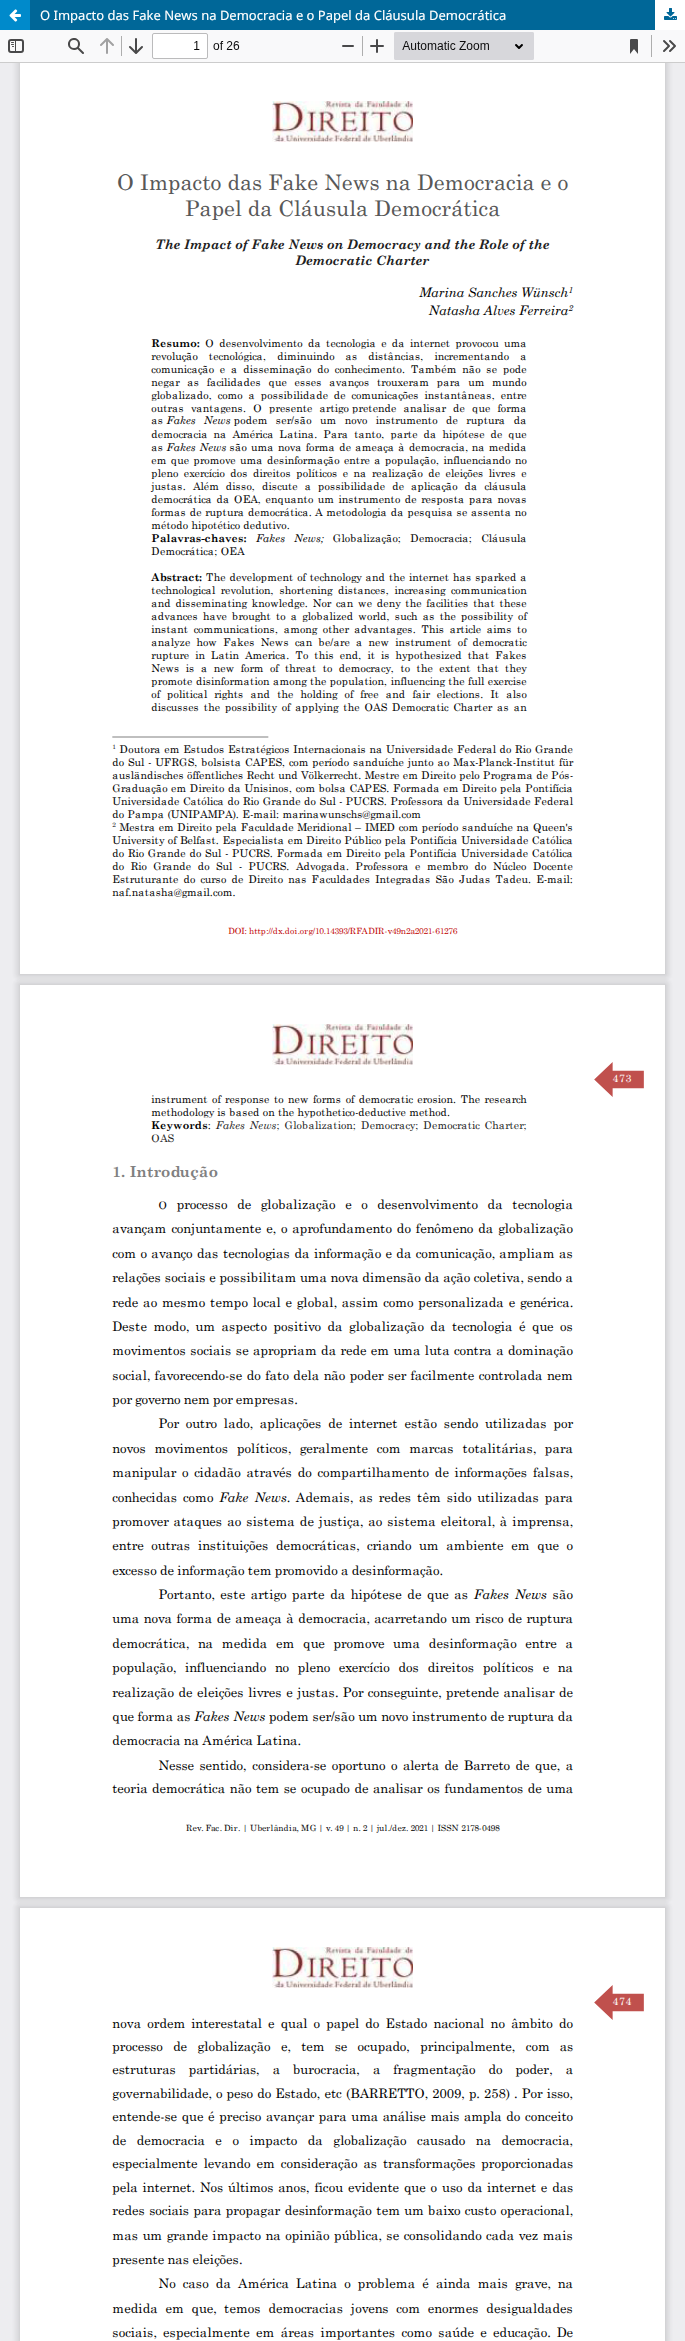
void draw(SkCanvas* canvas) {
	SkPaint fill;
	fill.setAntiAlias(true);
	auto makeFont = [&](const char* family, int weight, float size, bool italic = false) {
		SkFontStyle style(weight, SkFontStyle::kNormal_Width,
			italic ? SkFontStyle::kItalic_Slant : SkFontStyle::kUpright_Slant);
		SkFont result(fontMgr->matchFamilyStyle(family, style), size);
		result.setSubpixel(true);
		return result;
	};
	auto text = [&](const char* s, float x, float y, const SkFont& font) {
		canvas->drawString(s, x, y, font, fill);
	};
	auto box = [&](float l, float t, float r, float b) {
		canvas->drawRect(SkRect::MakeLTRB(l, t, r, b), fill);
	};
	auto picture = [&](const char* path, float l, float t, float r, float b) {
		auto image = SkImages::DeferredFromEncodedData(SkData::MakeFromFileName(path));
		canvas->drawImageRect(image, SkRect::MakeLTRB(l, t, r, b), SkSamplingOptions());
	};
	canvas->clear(0xFFFFFFFF);
	fill.setColor(0xFF006798);
	box(30, 0, 655, 30);
	fill.setColor(0xFF008ACB);
	box(0, 0, 30, 30);
	picture("image0.png", 9, 9, 21, 22);
	picture("image1.png", 664, 8, 677, 20);
	picture("image2.png", 0, 30, 685, 2341);
	auto font1 = makeFont("Noto Sans", 400, 13);
	fill.setColor(0xFFFFFFFF);
	text("O Impacto das Fake News na Democracia e o Papel da Cláusula Democrática", 40, 20, font1);
}
